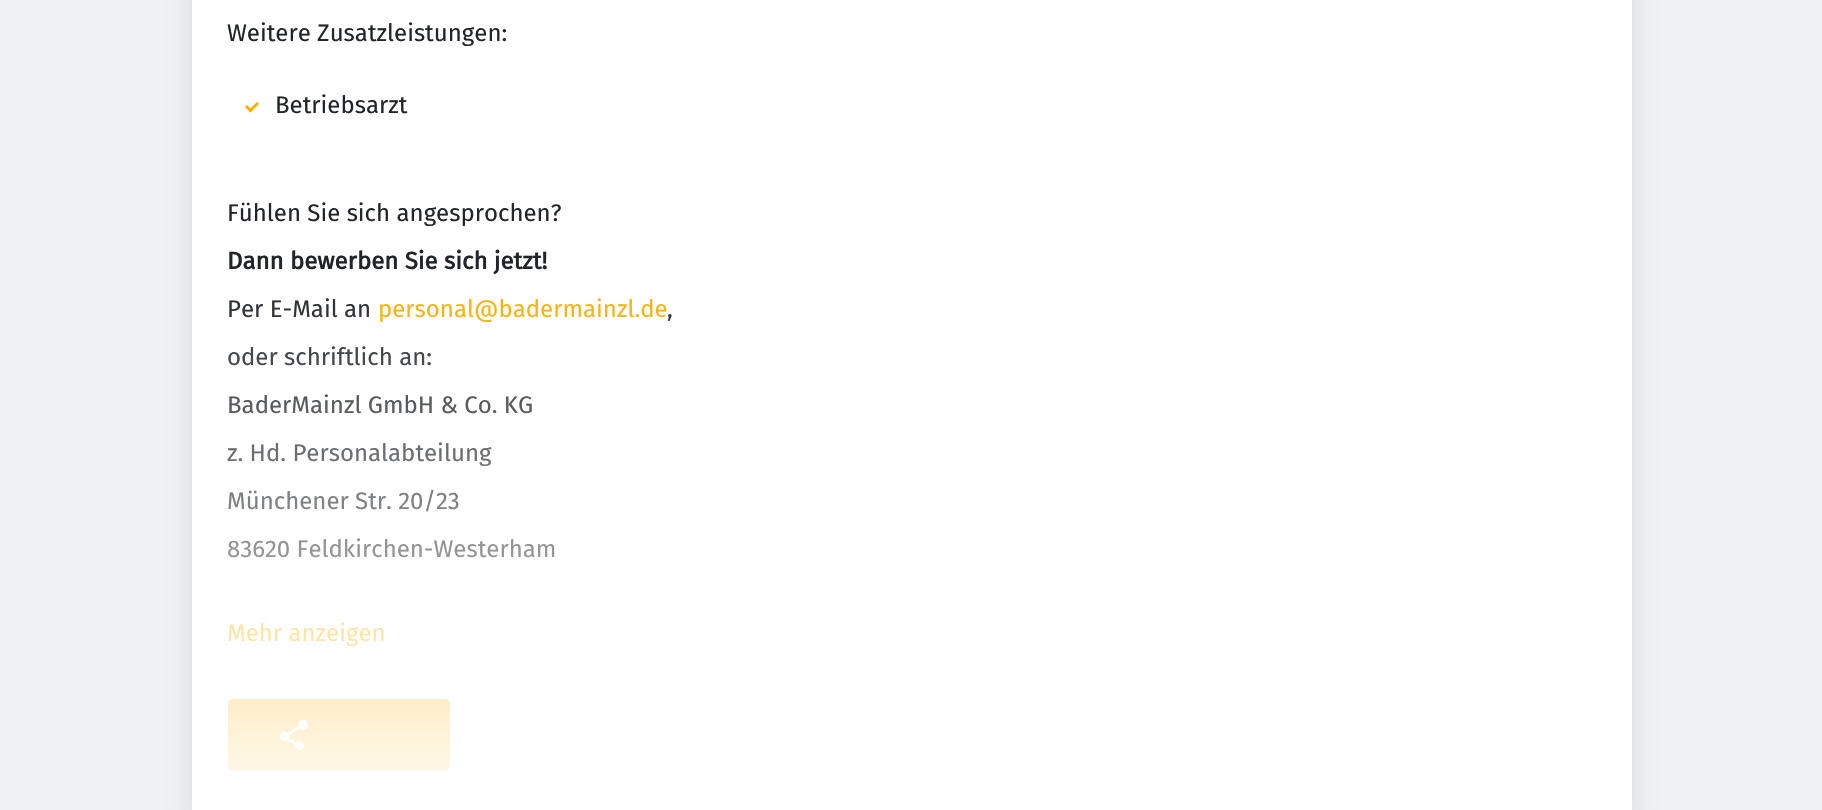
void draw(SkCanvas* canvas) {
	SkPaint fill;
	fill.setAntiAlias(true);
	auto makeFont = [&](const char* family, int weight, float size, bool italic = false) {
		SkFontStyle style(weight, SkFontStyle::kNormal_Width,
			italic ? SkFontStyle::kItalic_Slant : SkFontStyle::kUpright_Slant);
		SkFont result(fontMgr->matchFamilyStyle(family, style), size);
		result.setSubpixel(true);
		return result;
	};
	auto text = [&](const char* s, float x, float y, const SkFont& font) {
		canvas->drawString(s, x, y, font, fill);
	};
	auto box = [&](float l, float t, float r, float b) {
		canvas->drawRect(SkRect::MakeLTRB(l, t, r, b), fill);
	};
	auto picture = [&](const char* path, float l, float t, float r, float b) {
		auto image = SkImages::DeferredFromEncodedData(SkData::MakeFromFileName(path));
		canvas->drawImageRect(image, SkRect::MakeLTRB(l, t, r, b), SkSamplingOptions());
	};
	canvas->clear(0xFFEFF2F4);
	fill.setColor(0x1A000000);
	fill.setMaskFilter(SkMaskFilter::MakeBlur(kNormal_SkBlurStyle, 11));
	canvas->drawRoundRect(SkRect::MakeLTRB(192, -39, 1632, 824), 6, 6, fill);
	fill.setMaskFilter(nullptr);
	fill.setColor(0xFFFFFFFF);
	box(192, 0, 1632, 810);
	fill.setColor(0xFFF8AE00);
	canvas->drawPath(SkPathBuilder().moveTo(257, 102).lineTo(259, 104).lineTo(250.5f, 112.5f).lineTo(248.5f, 110.5f).close().detach(), fill);
	canvas->drawPath(SkPathBuilder().moveTo(247, 105).lineTo(252.5f, 110.5f).lineTo(250.5f, 112.5f).lineTo(245, 107).close().detach(), fill);
	canvas->drawRoundRect(SkRect::MakeLTRB(229.5f, 700.5f, 448.5f, 769.5f), 3.5f, 3.5f, fill);
	fill.setStyle(SkPaint::kStroke_Style);
	fill.setStrokeWidth(3);
	canvas->drawRoundRect(SkRect::MakeLTRB(229.5f, 700.5f, 448.5f, 769.5f), 3.5f, 3.5f, fill);
	picture("image0.png", 280, 720, 308, 750);
	auto font1 = makeFont("Fira Sans", 400, 24);
	fill.setStyle(SkPaint::kFill_Style);
	fill.setColor(0xFF212529);
	text("Weitere Zusatzleistungen:", 227, 41, font1);
	text("Betriebsarzt", 275, 113, font1);
	text("Fühlen Sie sich angesprochen?", 227, 221, font1);
	auto font2 = makeFont("Fira Sans", 700, 24);
	text("Dann bewerben Sie sich jetzt!", 227, 269, font2);
	text("Per E-Mail an", 227, 317, font1);
	fill.setColor(0xFFF8AE00);
	text("personal@badermainzl.de", 378, 317, font1);
	fill.setColor(0xFF212529);
	text(",", 667, 317, font1);
	text("oder schriftlich an:", 227, 365, font1);
	text("BaderMainzl GmbH & Co. KG", 227, 413, font1);
	text("z. Hd. Personalabteilung", 227, 461, font1);
	text("Münchener Str. 20/23", 227, 509, font1);
	text("83620 Feldkirchen-Westerham", 227, 557, font1);
	fill.setColor(0xFFF8AE00);
	text("Mehr anzeigen", 227, 641, font1);
	{
		const SkColor colors[] = {0x00FFFFFF, 0xFFFFFFFF};
		const float stops[] = {0, 1};
		const SkPoint ends[] = {{912, 270}, {912, 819}};
		fill.setShader(SkGradientShader::MakeLinear(ends, colors, stops, 2, SkTileMode::kClamp));
		fill.setAlpha(255);
	}
	box(227, 298, 672, 771);
}
